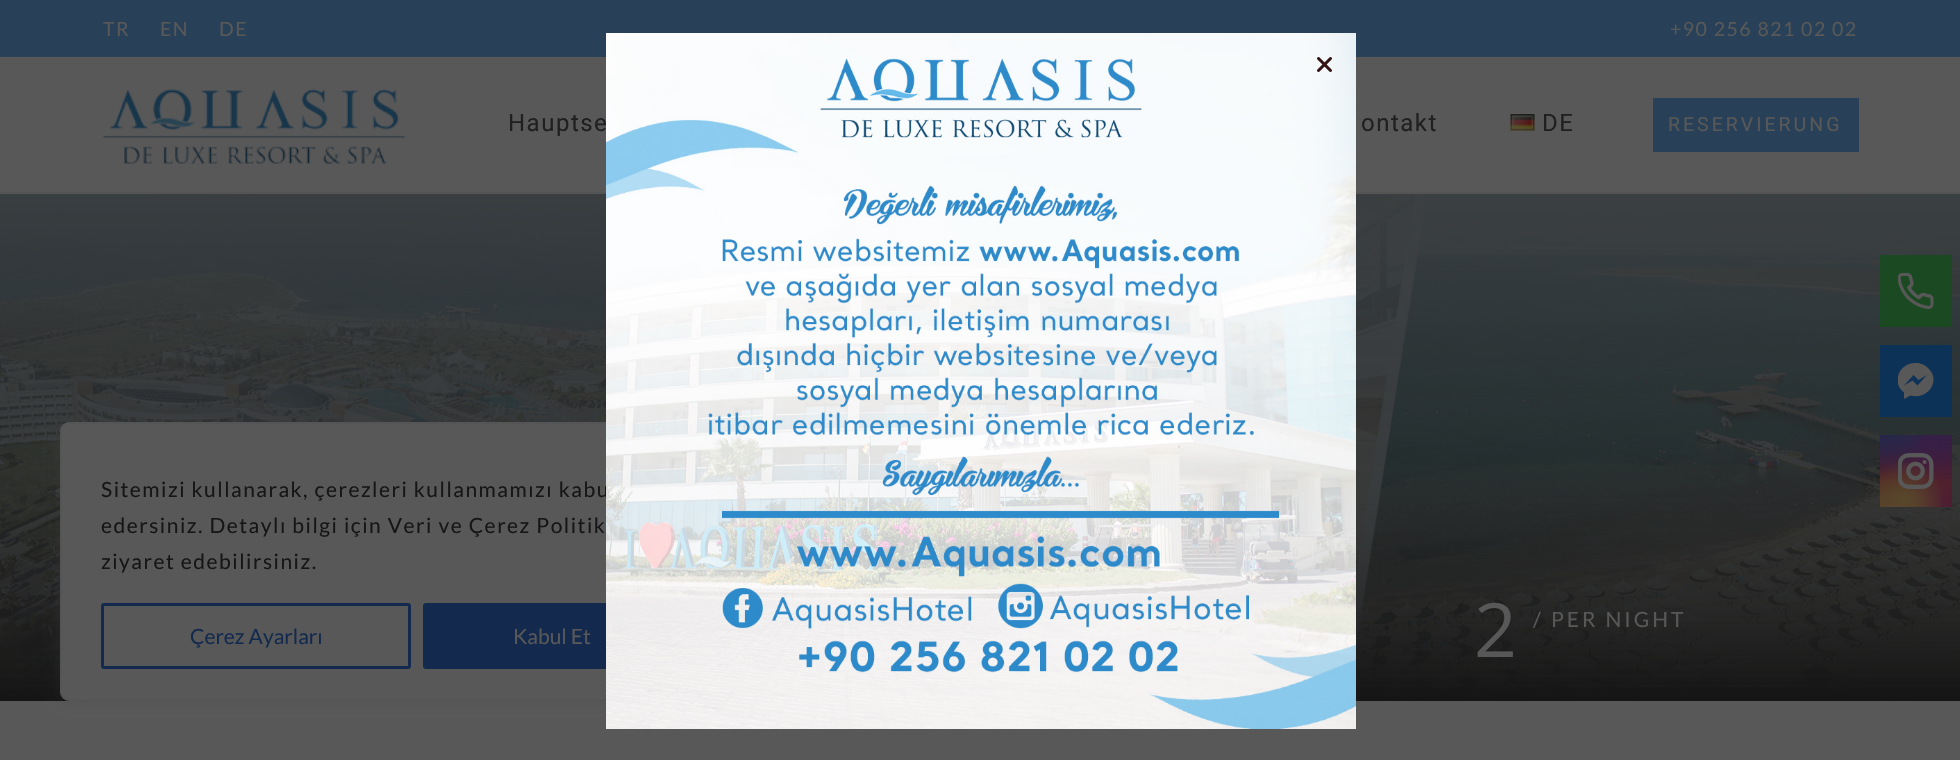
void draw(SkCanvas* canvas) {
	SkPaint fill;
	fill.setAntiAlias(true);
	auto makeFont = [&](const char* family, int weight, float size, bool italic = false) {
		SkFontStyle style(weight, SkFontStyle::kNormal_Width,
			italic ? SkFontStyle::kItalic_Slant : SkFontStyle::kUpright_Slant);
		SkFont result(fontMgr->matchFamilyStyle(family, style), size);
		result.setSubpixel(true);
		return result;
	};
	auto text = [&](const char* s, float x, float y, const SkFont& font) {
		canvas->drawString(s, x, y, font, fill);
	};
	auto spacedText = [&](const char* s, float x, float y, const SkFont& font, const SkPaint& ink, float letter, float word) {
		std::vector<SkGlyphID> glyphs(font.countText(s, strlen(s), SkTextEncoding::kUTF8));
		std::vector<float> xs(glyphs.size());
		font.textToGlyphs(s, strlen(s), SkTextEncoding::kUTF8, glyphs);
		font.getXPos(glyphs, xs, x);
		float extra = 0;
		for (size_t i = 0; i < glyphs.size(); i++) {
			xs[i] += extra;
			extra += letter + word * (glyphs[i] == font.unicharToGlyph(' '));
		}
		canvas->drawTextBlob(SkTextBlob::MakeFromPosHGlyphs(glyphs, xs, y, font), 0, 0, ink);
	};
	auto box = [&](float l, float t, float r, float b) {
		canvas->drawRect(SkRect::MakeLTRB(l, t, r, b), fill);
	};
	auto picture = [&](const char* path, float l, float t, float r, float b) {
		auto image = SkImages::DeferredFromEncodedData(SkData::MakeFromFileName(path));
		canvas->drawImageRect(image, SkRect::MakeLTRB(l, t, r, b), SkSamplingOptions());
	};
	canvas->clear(0xFF585858);
	fill.setColor(0xFF284158);
	box(0, 0, 1960, 57);
	fill.setColor(0xFF545454);
	box(0, 192, 1960, 194);
	picture("image0.png", 103, 89, 405, 164);
	picture("image1.png", 1510, 114, 1535, 131);
	fill.setColor(0xFF284158);
	box(1653, 98, 1859, 152);
	picture("image4.png", 0, 194, 1960, 700);
	{
		const SkColor colors[] = {0x002A2A29, 0x332A2A29, 0xFF141414};
		const float stops[] = {0, 0.6f, 1};
		const SkPoint ends[] = {{980, 193}, {980, 701}};
		fill.setShader(SkGradientShader::MakeLinear(ends, colors, stops, 3, SkTileMode::kClamp));
		fill.setAlpha(255);
	}
	box(0, 321, 1960, 701);
	fill.setShader(nullptr);
	fill.setColor(0xFF1B4922);
	box(1880, 255, 1952, 327);
	picture("image2.png", 1898, 273, 1934, 309);
	fill.setColor(0xFF0C3258);
	box(1880, 345, 1952, 417);
	canvas->save();
	canvas->clipRect(SkRect::MakeLTRB(1898, 363, 1934, 399));
	fill.setColor(0xFF585858);
	canvas->drawPath(SkPathBuilder().moveTo(1917.5f, 385.5f).lineTo(1912.5f, 380.5f).lineTo(1904, 385.5f).lineTo(1913.5f, 375).lineTo(1918.5f, 380).lineTo(1927, 375).close().moveTo(1915.5f, 363).cubicTo(1899, 363, 1891, 382.5f, 1904, 392.5f).lineTo(1904, 399).lineTo(1910.5f, 395.5f).cubicTo(1927, 400.5f, 1942, 380.5f, 1928, 368).cubicTo(1925, 364.5f, 1920, 363, 1915.5f, 363).close().detach(), fill);
	canvas->restore();
	{
		const SkColor colors[] = {0xFF2A2749, 0xFF441B37, 0xFF501F28, 0xFF562F1D, 0xFF58472D};
		const float stops[] = {0, 0.3f, 0.5f, 0.7f, 1};
		const SkPoint ends[] = {{1916, 435}, {1916, 507}};
		fill.setShader(SkGradientShader::MakeLinear(ends, colors, stops, 5, SkTileMode::kClamp));
		fill.setAlpha(255);
	}
	box(1880, 435, 1952, 507);
	{
		const SkColor colors[] = {0xFF4D1B31, 0x004D1B31};
		const float stops[] = {0, 1};
		fill.setShader(SkGradientShader::MakeRadial({1952, 507}, 102, colors, stops, 2, SkTileMode::kClamp));
		fill.setAlpha(255);
	}
	box(1880, 435, 1952, 507);
	{
		const SkColor colors[] = {0xFF351E46, 0x00351E46};
		const float stops[] = {0, 0.5f};
		SkMatrix m = SkMatrix::Translate(1923, 421).preScale(61, 122);
		fill.setShader(SkGradientShader::MakeRadial({0, 0}, 1, colors, stops, 2, SkTileMode::kClamp, 0, &m));
		fill.setAlpha(255);
	}
	box(1902, 435, 1945, 476);
	{
		const SkColor colors[] = {0xFF351E46, 0x00351E46};
		const float stops[] = {0, 0.5f};
		fill.setShader(SkGradientShader::MakeRadial({1952, 435}, 102, colors, stops, 2, SkTileMode::kClamp));
		fill.setAlpha(255);
	}
	box(1915, 435, 1952, 481);
	{
		const SkColor colors[] = {0xFF25264A, 0x0025264A};
		const float stops[] = {0, 0.5f};
		SkMatrix m = SkMatrix::Translate(1894, 399).preScale(81, 153);
		fill.setShader(SkGradientShader::MakeRadial({0, 0}, 1, colors, stops, 2, SkTileMode::kClamp, 0, &m));
		fill.setAlpha(255);
	}
	box(1880, 435, 1922, 471);
	{
		const SkColor colors[] = {0xFF25264A, 0x0025264A};
		const float stops[] = {0, 0.5f};
		SkMatrix m = SkMatrix::Translate(1880, 417).preScale(102, 127);
		fill.setShader(SkGradientShader::MakeRadial({0, 0}, 1, colors, stops, 2, SkTileMode::kClamp, 0, &m));
		fill.setAlpha(255);
	}
	box(1880, 435, 1920, 477);
	{
		const SkColor colors[] = {0xFF58472A, 0x0058472A};
		const float stops[] = {0, 0.5f};
		fill.setShader(SkGradientShader::MakeRadial({1880, 536}, 124, colors, stops, 2, SkTileMode::kClamp));
		fill.setAlpha(255);
	}
	box(1880, 478, 1929, 507);
	{
		const SkColor colors[] = {0xFF58472A, 0x0058472A};
		const float stops[] = {0, 0.5f};
		fill.setShader(SkGradientShader::MakeRadial({1905, 500}, 80, colors, stops, 2, SkTileMode::kClamp));
		fill.setAlpha(255);
	}
	box(1880, 463, 1942, 507);
	picture("image3.png", 1898, 453, 1934, 489);
	fill.setShader(nullptr);
	fill.setColor(0x4D403F3F);
	fill.setMaskFilter(SkMaskFilter::MakeBlur(kNormal_SkBlurStyle, 7.5f));
	canvas->drawRoundRect(SkRect::MakeLTRB(60, 420, 720, 699), 9, 9, fill);
	fill.setMaskFilter(nullptr);
	fill.setColor(0xFF585858);
	canvas->drawRoundRect(SkRect::MakeLTRB(61, 423, 719, 700), 8, 8, fill);
	fill.setStyle(SkPaint::kStroke_Style);
	fill.setStrokeWidth(2);
	fill.setColor(0xFF555555);
	canvas->drawRoundRect(SkRect::MakeLTRB(61, 423, 719, 700), 8, 8, fill);
	fill.setStrokeWidth(3);
	fill.setColor(0xFF132A4E);
	canvas->drawRoundRect(SkRect::MakeLTRB(102.5f, 604.5f, 409.5f, 667.5f), 1.5f, 1.5f, fill);
	fill.setStyle(SkPaint::kFill_Style);
	canvas->drawRoundRect(SkRect::MakeLTRB(424.5f, 604.5f, 678.5f, 667.5f), 1.5f, 1.5f, fill);
	fill.setStyle(SkPaint::kStroke_Style);
	canvas->drawRoundRect(SkRect::MakeLTRB(424.5f, 604.5f, 678.5f, 667.5f), 1.5f, 1.5f, fill);
	auto font1 = makeFont("Lato", 400, 19.5f);
	fill.setStyle(SkPaint::kFill_Style);
	fill.setColor(0xFF585858);
	spacedText("TR", 103, 36, font1, fill, 1.5f, 0);
	spacedText("EN", 160, 36, font1, fill, 1.5f, 0);
	spacedText("DE", 219, 36, font1, fill, 1.5f, 0);
	spacedText("+90 256 821 02 02", 1670, 36, font1, fill, 1.5f, 0);
	auto font2 = makeFont("Roboto", 400, 24);
	fill.setColor(0xFF202020);
	spacedText("Hauptse", 508, 131, font2, fill, 1.5f, 0);
	spacedText("ontakt", 1361, 131, font2, fill, 1.5f, 0);
	spacedText("DE", 1542, 131, font2, fill, 1.5f, 0);
	auto font3 = makeFont("Roboto", 400, 19.5f);
	fill.setColor(0xFF585858);
	spacedText("RESERVIERUNG", 1668, 131, font3, fill, 3, 0);
	auto font4 = makeFont("Open Sans", 400, 75);
	spacedText("2", 1474, 657, font4, fill, 1.5f, 0);
	auto font5 = makeFont("Lato", 400, 21);
	spacedText("/ PER NIGHT", 1533, 627, font5, fill, 3, 0);
	fill.setColor(0xFF161616);
	spacedText("Sitemizi kullanarak, çerezleri kullanmamızı kabu", 101, 497, font5, fill, 1.5f, 0);
	spacedText("edersiniz. Detaylı bilgi için Veri ve Çerez Politik", 101, 533, font5, fill, 1.5f, 0);
	spacedText("ziyaret edebilirsiniz.", 101, 569, font5, fill, 1.5f, 0);
	fill.setColor(0xFF132A4E);
	text("Çerez Ayarları", 190, 644, font5);
	fill.setColor(0xFF585858);
	text("Kabul Et", 513, 644, font5);
	picture("image5.png", 606, 33, 1356, 729);
	picture("image6.png", 1317, 57, 1332, 72);
}
